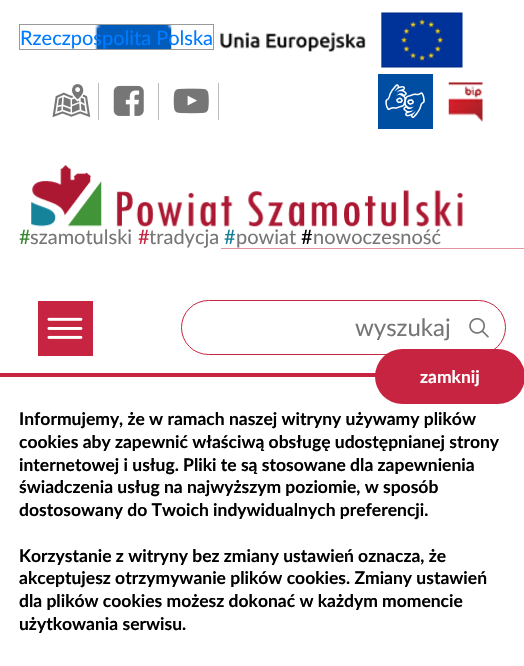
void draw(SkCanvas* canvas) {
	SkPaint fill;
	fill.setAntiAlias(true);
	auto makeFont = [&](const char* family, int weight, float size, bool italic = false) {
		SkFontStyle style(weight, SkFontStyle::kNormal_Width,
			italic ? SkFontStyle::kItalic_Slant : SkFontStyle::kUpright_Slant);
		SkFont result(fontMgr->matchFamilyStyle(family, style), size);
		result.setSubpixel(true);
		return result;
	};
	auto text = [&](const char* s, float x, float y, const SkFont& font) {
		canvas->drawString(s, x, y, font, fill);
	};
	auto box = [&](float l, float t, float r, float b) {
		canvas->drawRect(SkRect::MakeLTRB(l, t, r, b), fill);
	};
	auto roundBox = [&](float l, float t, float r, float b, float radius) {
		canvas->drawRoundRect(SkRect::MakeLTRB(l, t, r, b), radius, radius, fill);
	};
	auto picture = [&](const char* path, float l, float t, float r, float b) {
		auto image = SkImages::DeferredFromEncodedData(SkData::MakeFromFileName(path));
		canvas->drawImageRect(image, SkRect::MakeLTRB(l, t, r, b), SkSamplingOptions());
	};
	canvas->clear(0xFFFFFFFF);
	picture("image0.png", 95, 25, 172, 49);
	picture("image1.png", 220, 12, 463, 68);
	fill.setStyle(SkPaint::kStroke_Style);
	fill.setStrokeWidth(1);
	fill.setColor(0xFF999999);
	canvas->drawRect(SkRect::MakeLTRB(19.5f, 24.5f, 213.5f, 49.5f), fill);
	picture("image2.png", 52, 84, 91, 118);
	fill.setStyle(SkPaint::kFill_Style);
	fill.setColor(0xFFBBBBBB);
	box(98, 83, 99, 120);
	picture("image3.png", 113, 85, 144, 116);
	box(158, 83, 159, 120);
	picture("image4.png", 173, 88, 209, 114);
	box(218, 83, 219, 120);
	fill.setColor(0xFF004EA2);
	box(378, 74, 433, 129);
	picture("image5.png", 385, 84, 425, 118);
	picture("image6.png", 448, 82, 483, 122);
	picture("image7.png", 31, 165, 463, 227);
	fill.setColor(0xFFE392A0);
	box(221, 248, 524, 249);
	fill.setColor(0xFFC72441);
	box(38, 301, 93, 356);
	picture("image8.png", 47, 317, 83, 339);
	fill.setStyle(SkPaint::kStroke_Style);
	canvas->drawRoundRect(SkRect::MakeLTRB(181.5f, 300.5f, 505.5f, 354.5f), 27, 27, fill);
	picture("image9.png", 469, 317, 489, 338);
	fill.setStyle(SkPaint::kFill_Style);
	box(0, 373, 376, 377);
	roundBox(375, 349, 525, 404, 27.5f);
	auto font1 = makeFont("Lato", 400, 20);
	fill.setColor(0xFF007BFF);
	text("Rzeczpospolita Polska", 20, 45, font1);
	fill.setColor(0xFF398632);
	text("#", 19, 244, font1);
	fill.setColor(0xFF767676);
	text("szamotulski", 30, 244, font1);
	fill.setColor(0xFFC72441);
	text("#", 138, 244, font1);
	fill.setColor(0xFF767676);
	text("tradycja", 149, 244, font1);
	fill.setColor(0xFF147F94);
	text("#", 224, 244, font1);
	fill.setColor(0xFF767676);
	text("powiat", 236, 244, font1);
	fill.setColor(0xFF000000);
	text("#", 301, 244, font1);
	fill.setColor(0xFF767676);
	text("nowoczesność", 313, 244, font1);
	auto font2 = makeFont("Lato", 400, 24);
	text("wyszukaj", 355, 336, font2);
	auto font3 = makeFont("Lato", 700, 17.5f);
	fill.setColor(0xFFFFFFFF);
	text("zamknij", 420, 383, font3);
	fill.setColor(0xFF000000);
	text("Informujemy, że w ramach naszej witryny używamy plików", 19, 425, font3);
	text("cookies aby zapewnić właściwą obsługę udostępnianej strony", 19, 448, font3);
	text("internetowej i usług. Pliki te są stosowane dla zapewnienia", 19, 471, font3);
	text("świadczenia usług na najwyższym poziomie, w sposób", 19, 493, font3);
	text("dostosowany do Twoich indywidualnych preferencji.", 19, 516, font3);
	text("Korzystanie z witryny bez zmiany ustawień oznacza, że", 19, 562, font3);
	text("akceptujesz otrzymywanie plików cookies. Zmiany ustawień", 19, 584, font3);
	text("dla plików cookies możesz dokonać w każdym momencie", 19, 607, font3);
	text("użytkowania serwisu.", 19, 630, font3);
}
